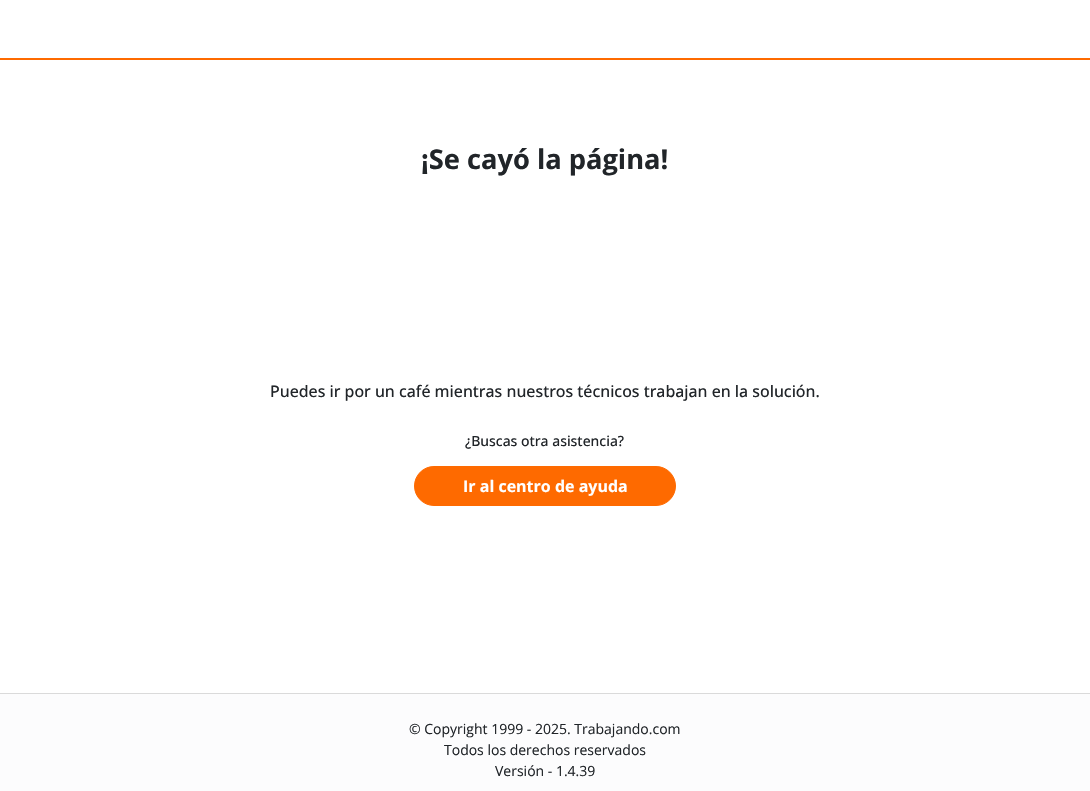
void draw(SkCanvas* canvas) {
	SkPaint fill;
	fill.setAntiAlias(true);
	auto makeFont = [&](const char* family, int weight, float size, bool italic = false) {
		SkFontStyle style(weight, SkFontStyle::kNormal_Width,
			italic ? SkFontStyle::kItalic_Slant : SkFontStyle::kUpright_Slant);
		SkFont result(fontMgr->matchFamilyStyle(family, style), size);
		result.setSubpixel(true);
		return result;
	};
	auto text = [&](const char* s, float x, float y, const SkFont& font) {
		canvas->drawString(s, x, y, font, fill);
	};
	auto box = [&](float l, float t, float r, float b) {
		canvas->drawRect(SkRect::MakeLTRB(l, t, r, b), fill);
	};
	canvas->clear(0xFFFFFFFF);
	fill.setColor(0xFFFE6A00);
	box(0, 58, 1090, 60);
	canvas->drawRoundRect(SkRect::MakeLTRB(414.5f, 466.5f, 675.5f, 505.5f), 19.5f, 19.5f, fill);
	fill.setStyle(SkPaint::kStroke_Style);
	fill.setStrokeWidth(1);
	canvas->drawRoundRect(SkRect::MakeLTRB(414.5f, 466.5f, 675.5f, 505.5f), 19.5f, 19.5f, fill);
	fill.setStyle(SkPaint::kFill_Style);
	fill.setColor(0xFFFCFCFD);
	box(0, 694, 1090, 791);
	fill.setColor(0xFFDADADA);
	box(0, 693, 1090, 694);
	auto font1 = makeFont("Open Sans", 700, 27.25f);
	fill.setColor(0xFF212529);
	text("¡Se cayó la página!", 421, 169, font1);
	auto font2 = makeFont("Open Sans", 500, 15.95f);
	text("Puedes ir por un café mientras nuestros técnicos trabajan en la solución.", 270, 397, font2);
	auto font3 = makeFont("Open Sans", 500, 14);
	text("¿Buscas otra asistencia?", 465, 446, font3);
	auto font4 = makeFont("Open Sans", 700, 16);
	fill.setColor(0xFFFFFFFF);
	text("Ir al centro de ayuda", 463, 492, font4);
	auto font5 = makeFont("Open Sans", 400, 14);
	fill.setColor(0xFF212529);
	text("© Copyright 1999 - 2025. Trabajando.com", 409, 734, font5);
	text("Todos los derechos reservados", 444, 755, font5);
	text("Versión - 1.4.39", 495, 776, font5);
}
